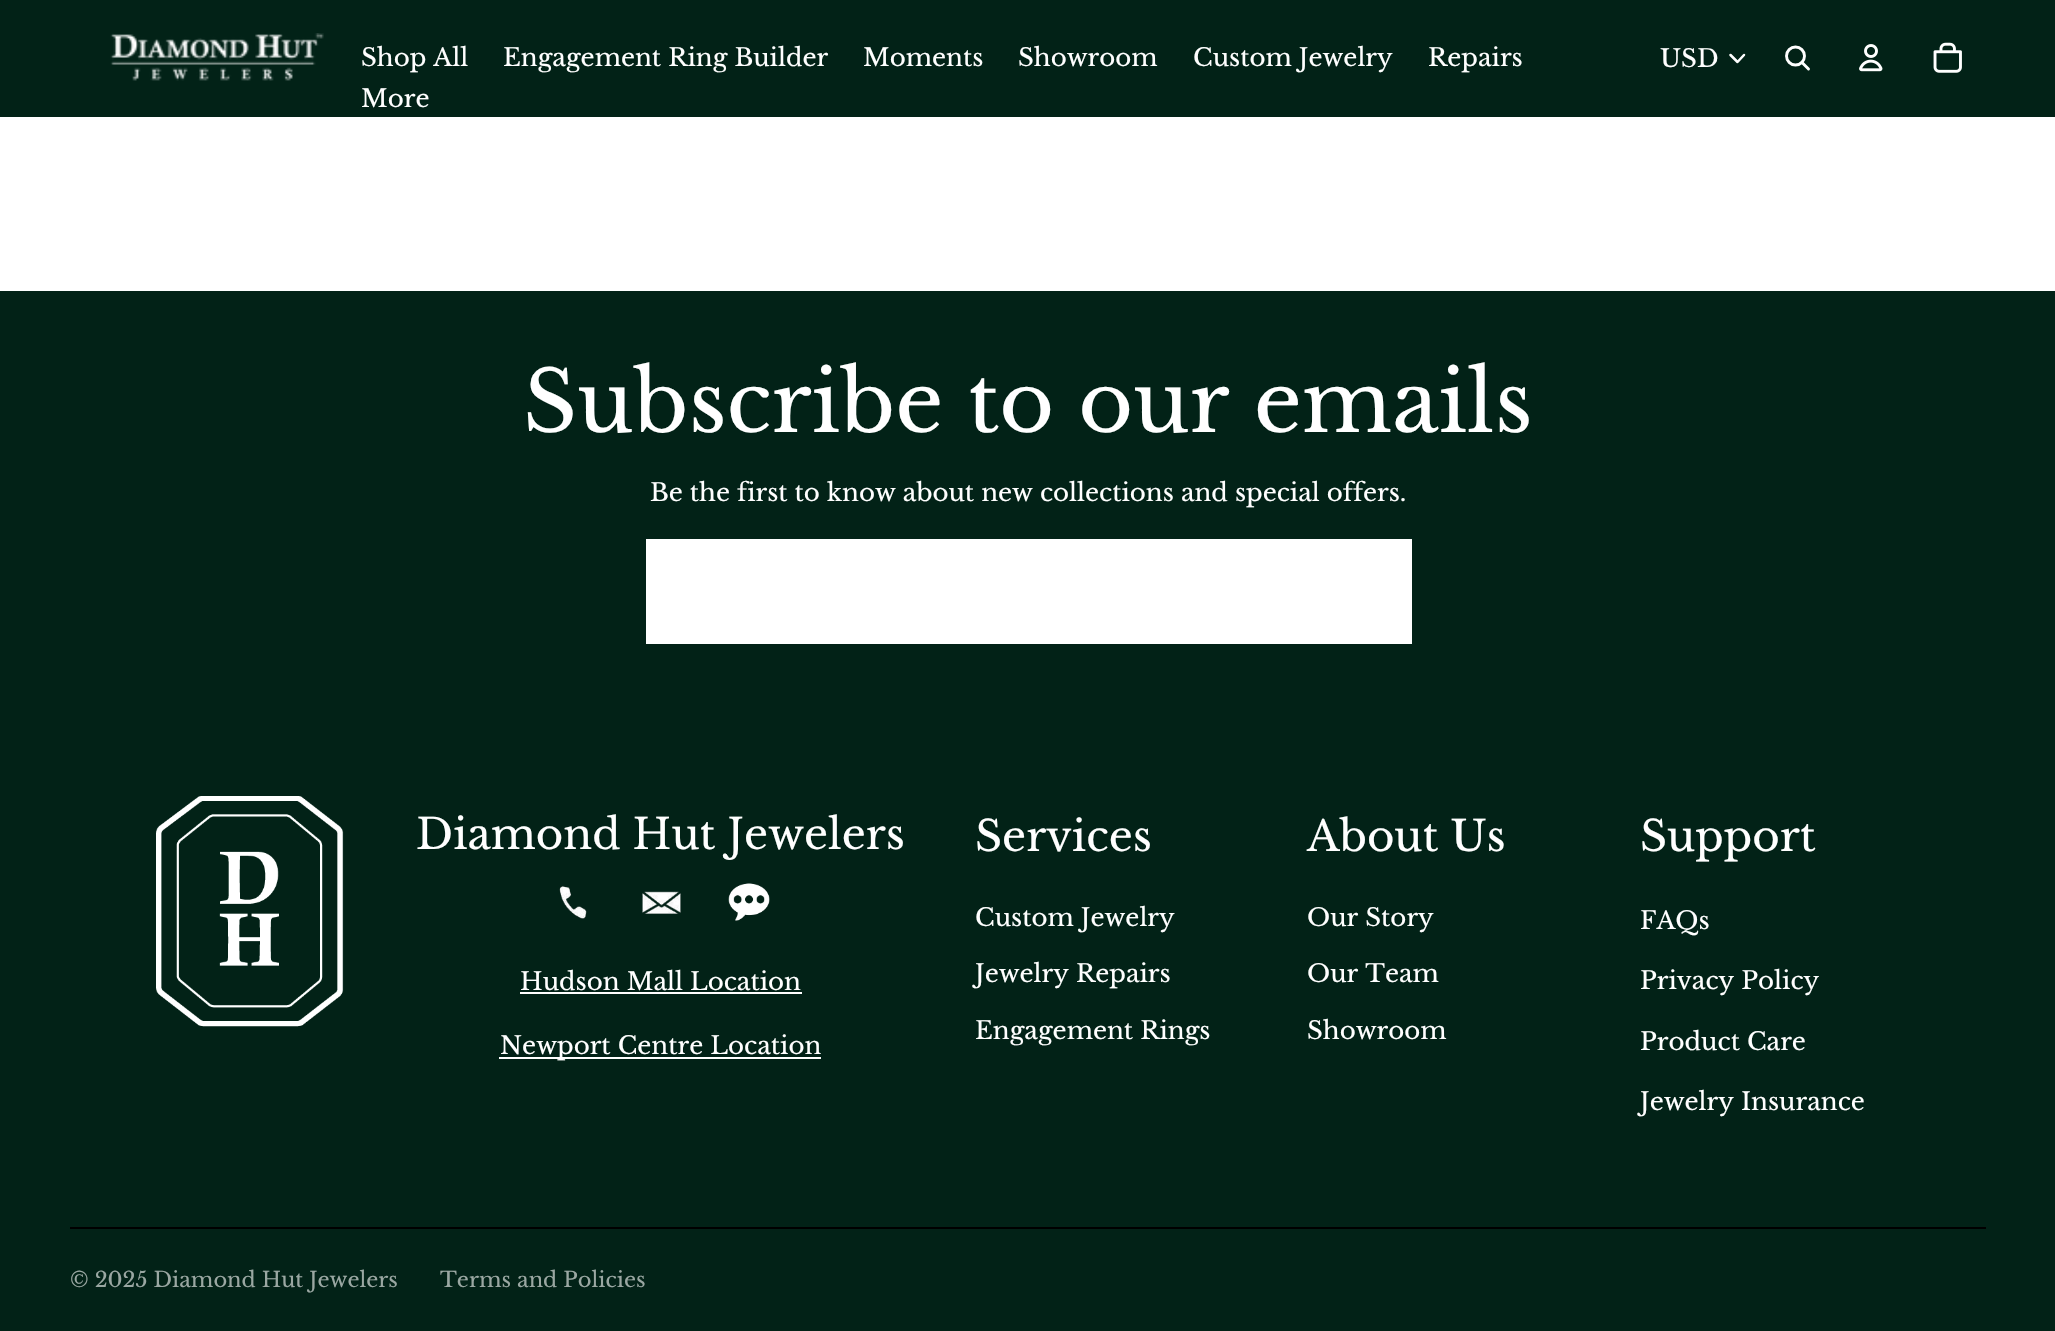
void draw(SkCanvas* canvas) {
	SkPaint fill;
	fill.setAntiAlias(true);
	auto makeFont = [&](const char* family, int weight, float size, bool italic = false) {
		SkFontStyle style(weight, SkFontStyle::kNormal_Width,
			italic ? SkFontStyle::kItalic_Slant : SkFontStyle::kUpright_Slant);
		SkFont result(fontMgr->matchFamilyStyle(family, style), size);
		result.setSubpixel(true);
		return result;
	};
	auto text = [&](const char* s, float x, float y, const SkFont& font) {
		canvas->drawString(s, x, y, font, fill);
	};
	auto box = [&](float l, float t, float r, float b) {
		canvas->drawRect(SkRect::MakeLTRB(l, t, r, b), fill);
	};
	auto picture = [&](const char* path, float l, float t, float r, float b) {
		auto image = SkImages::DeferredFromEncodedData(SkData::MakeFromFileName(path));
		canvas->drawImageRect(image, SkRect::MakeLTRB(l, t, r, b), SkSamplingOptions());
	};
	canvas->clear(0xFF022217);
	picture("image0.png", 110, 33, 324, 81);
	fill.setStyle(SkPaint::kStroke_Style);
	fill.setStrokeWidth(2.5f);
	fill.setStrokeCap(SkPaint::kRound_Cap);
	fill.setStrokeJoin(SkPaint::kRound_Join);
	fill.setColor(0xFFFFFFFF);
	canvas->drawPath(SkPathBuilder().moveTo(1744, 55).lineTo(1737.5f, 62).lineTo(1730.5f, 55).detach(), fill);
	fill.setStrokeWidth(2.9f);
	fill.setStrokeCap(SkPaint::kButt_Cap);
	fill.setStrokeJoin(SkPaint::kMiter_Join);
	canvas->drawCircle(1795.5f, 56, 9, fill);
	fill.setStrokeCap(SkPaint::kRound_Cap);
	fill.setStrokeJoin(SkPaint::kRound_Join);
	canvas->drawPath(SkPathBuilder().moveTo(1802, 62.5f).lineTo(1808.5f, 69).detach(), fill);
	picture("image1.png", 1859, 44, 1883, 72);
	picture("image2.png", 1933, 42, 1962, 73);
	fill.setStyle(SkPaint::kFill_Style);
	box(0, 117, 2055, 291);
	box(646, 539, 1412, 644);
	picture("image3.png", 156, 796, 344, 1027);
	picture("image4.png", 559, 886, 587, 919);
	picture("image5.png", 642, 891, 681, 914);
	picture("image6.png", 728, 883, 770, 921);
	box(520, 992, 802, 994);
	box(499, 1057, 821, 1059);
	fill.setColor(0xFF000000);
	box(70, 1227, 1986, 1229);
	auto font1 = makeFont("Libre Baskerville", 400, 24.5f);
	fill.setColor(0xFFFFFFFF);
	text("Shop All", 361, 66, font1);
	text("Engagement Ring Builder", 503, 66, font1);
	text("Moments", 863, 66, font1);
	text("Showroom", 1018, 66, font1);
	text("Custom Jewelry", 1193, 66, font1);
	text("Repairs", 1428, 66, font1);
	text("More", 361, 107, font1);
	text("USD", 1660, 67, font1);
	auto font2 = makeFont("Libre Baskerville", 400, 84);
	text("Subscribe to our emails", 523, 432, font2);
	text("Be the first to know about new collections and special offers.", 650, 501, font1);
	auto font3 = makeFont("Libre Baskerville", 400, 42);
	text("Diamond Hut Jewelers", 416, 849, font3);
	text("Hudson Mall Location", 520, 990, font1);
	text("Newport Centre Location", 500, 1054, font1);
	text("Services", 975, 851, font3);
	text("Custom Jewelry", 975, 926, font1);
	text("Jewelry Repairs", 975, 982, font1);
	text("Engagement Rings", 975, 1039, font1);
	text("About Us", 1307, 851, font3);
	text("Our Story", 1307, 926, font1);
	text("Our Team", 1307, 982, font1);
	text("Showroom", 1307, 1039, font1);
	text("Support", 1640, 851, font3);
	text("FAQs", 1640, 929, font1);
	text("Privacy Policy", 1640, 989, font1);
	text("Product Care", 1640, 1050, font1);
	text("Jewelry Insurance", 1640, 1110, font1);
	auto font4 = makeFont("Libre Baskerville", 400, 21);
	fill.setColor(0xFF9AA7A2);
	text("© 2025 Diamond Hut Jewelers", 70, 1287, font4);
	text("Terms and Policies", 440, 1287, font4);
}
